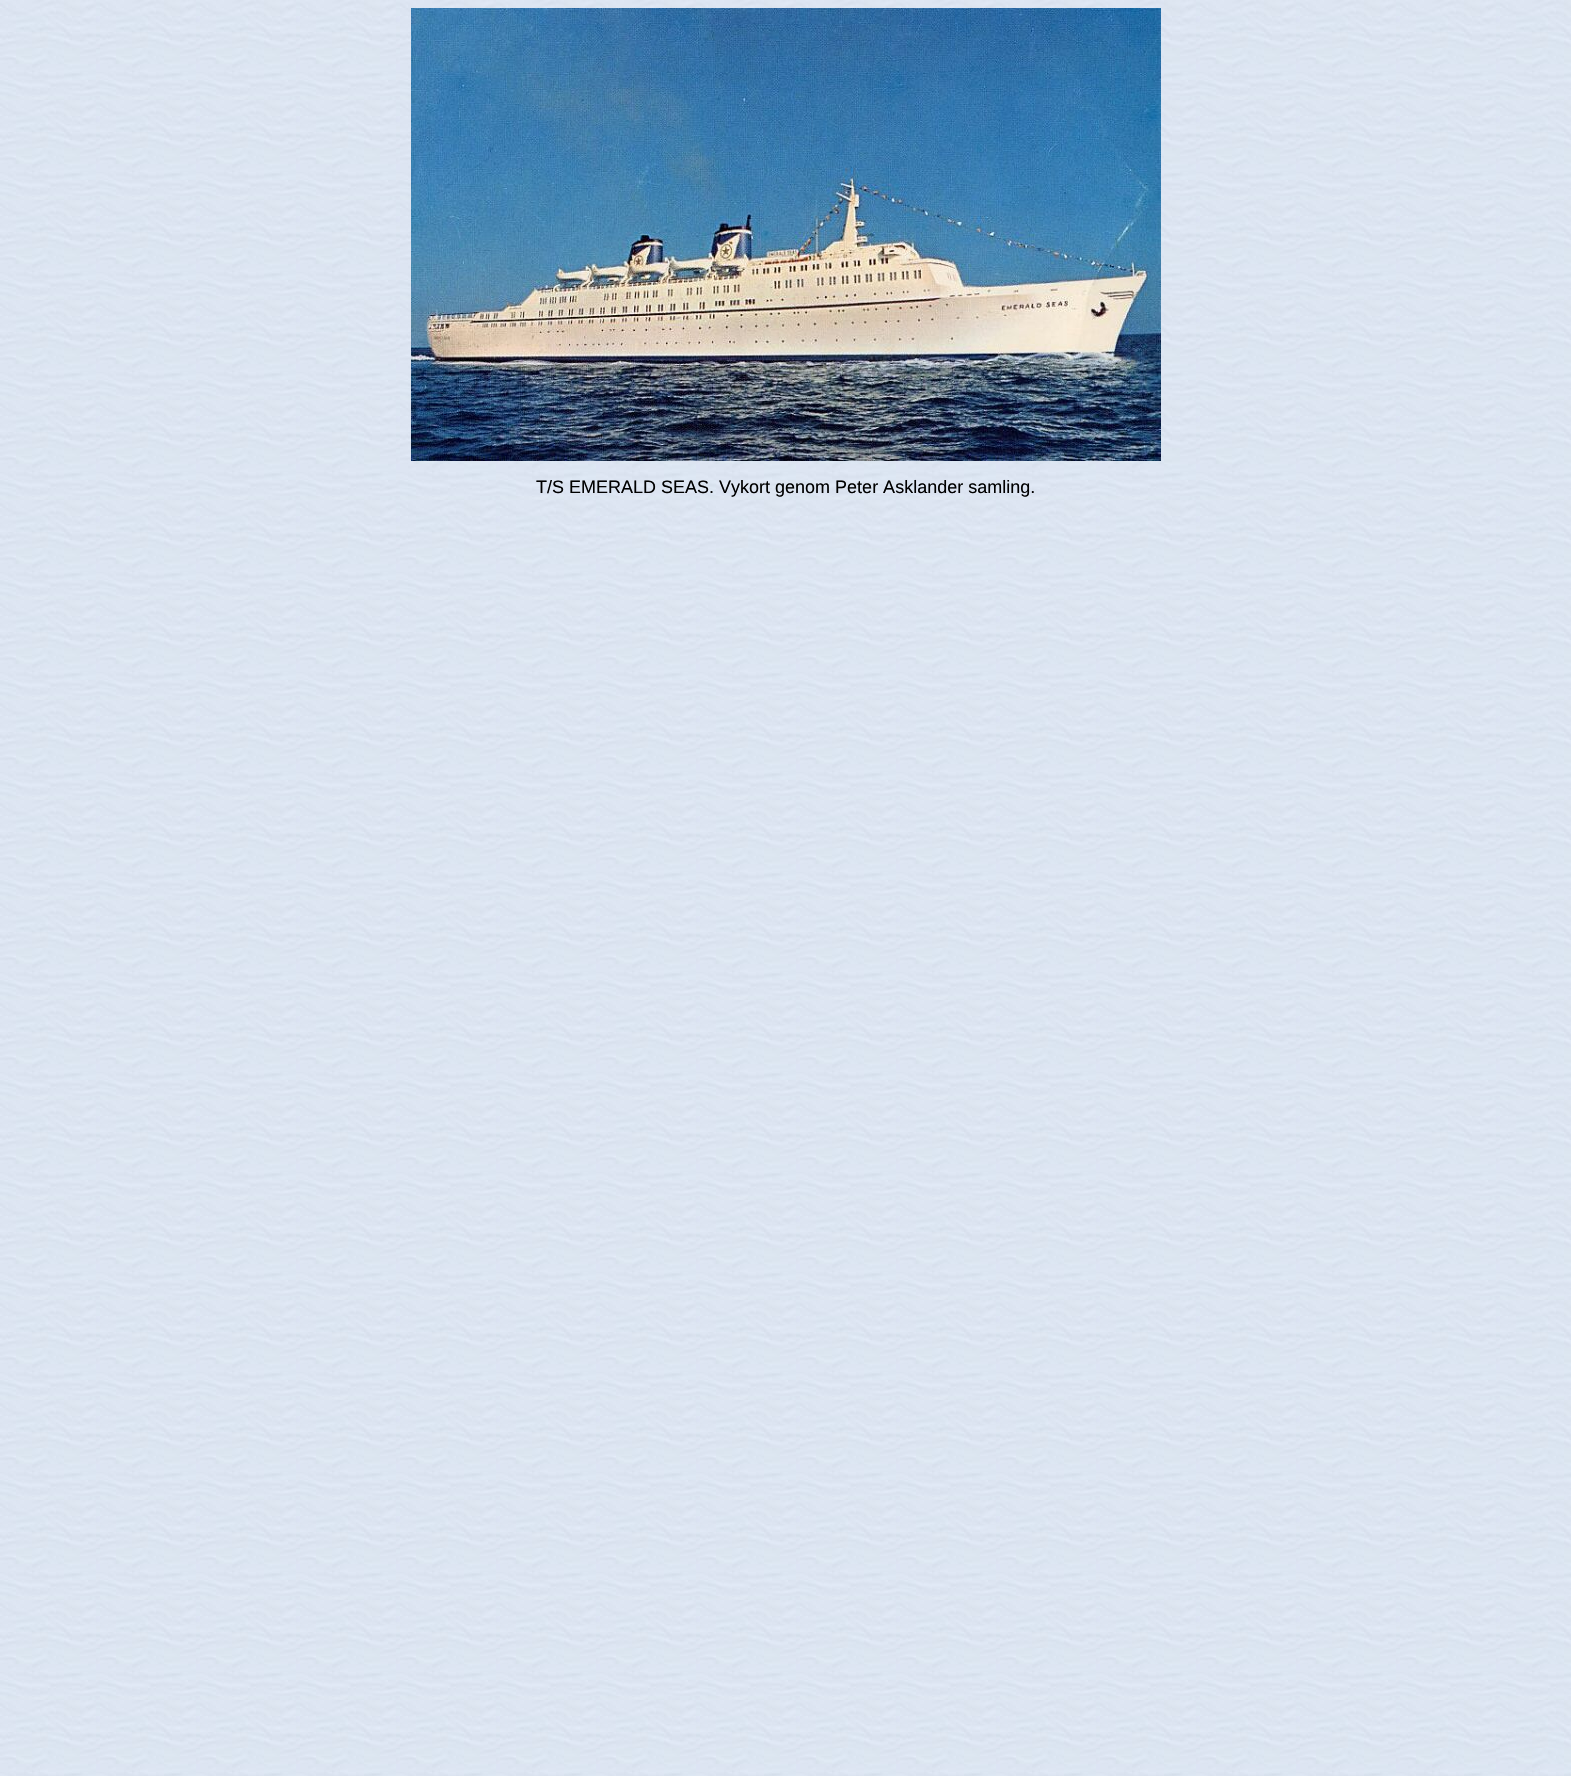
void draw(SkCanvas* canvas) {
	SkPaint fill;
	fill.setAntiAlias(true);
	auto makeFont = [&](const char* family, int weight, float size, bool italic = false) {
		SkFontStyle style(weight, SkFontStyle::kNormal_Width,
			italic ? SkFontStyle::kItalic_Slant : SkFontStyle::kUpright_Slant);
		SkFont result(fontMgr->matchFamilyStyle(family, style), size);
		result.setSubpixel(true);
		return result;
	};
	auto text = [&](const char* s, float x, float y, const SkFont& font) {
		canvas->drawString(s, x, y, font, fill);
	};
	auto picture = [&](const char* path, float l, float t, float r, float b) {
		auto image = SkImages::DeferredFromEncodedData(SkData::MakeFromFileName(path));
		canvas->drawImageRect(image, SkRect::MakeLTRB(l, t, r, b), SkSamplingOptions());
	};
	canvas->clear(0xFFFFFFFF);
	picture("image0.png", 0, 0, 1571, 1776);
	picture("image1.png", 411, 8, 1161, 461);
	auto font1 = makeFont("Liberation Sans", 400, 18);
	fill.setColor(0xFF000000);
	text("T/S EMERALD SEAS. Vykort genom Peter Asklander samling.", 536, 493, font1);
}
